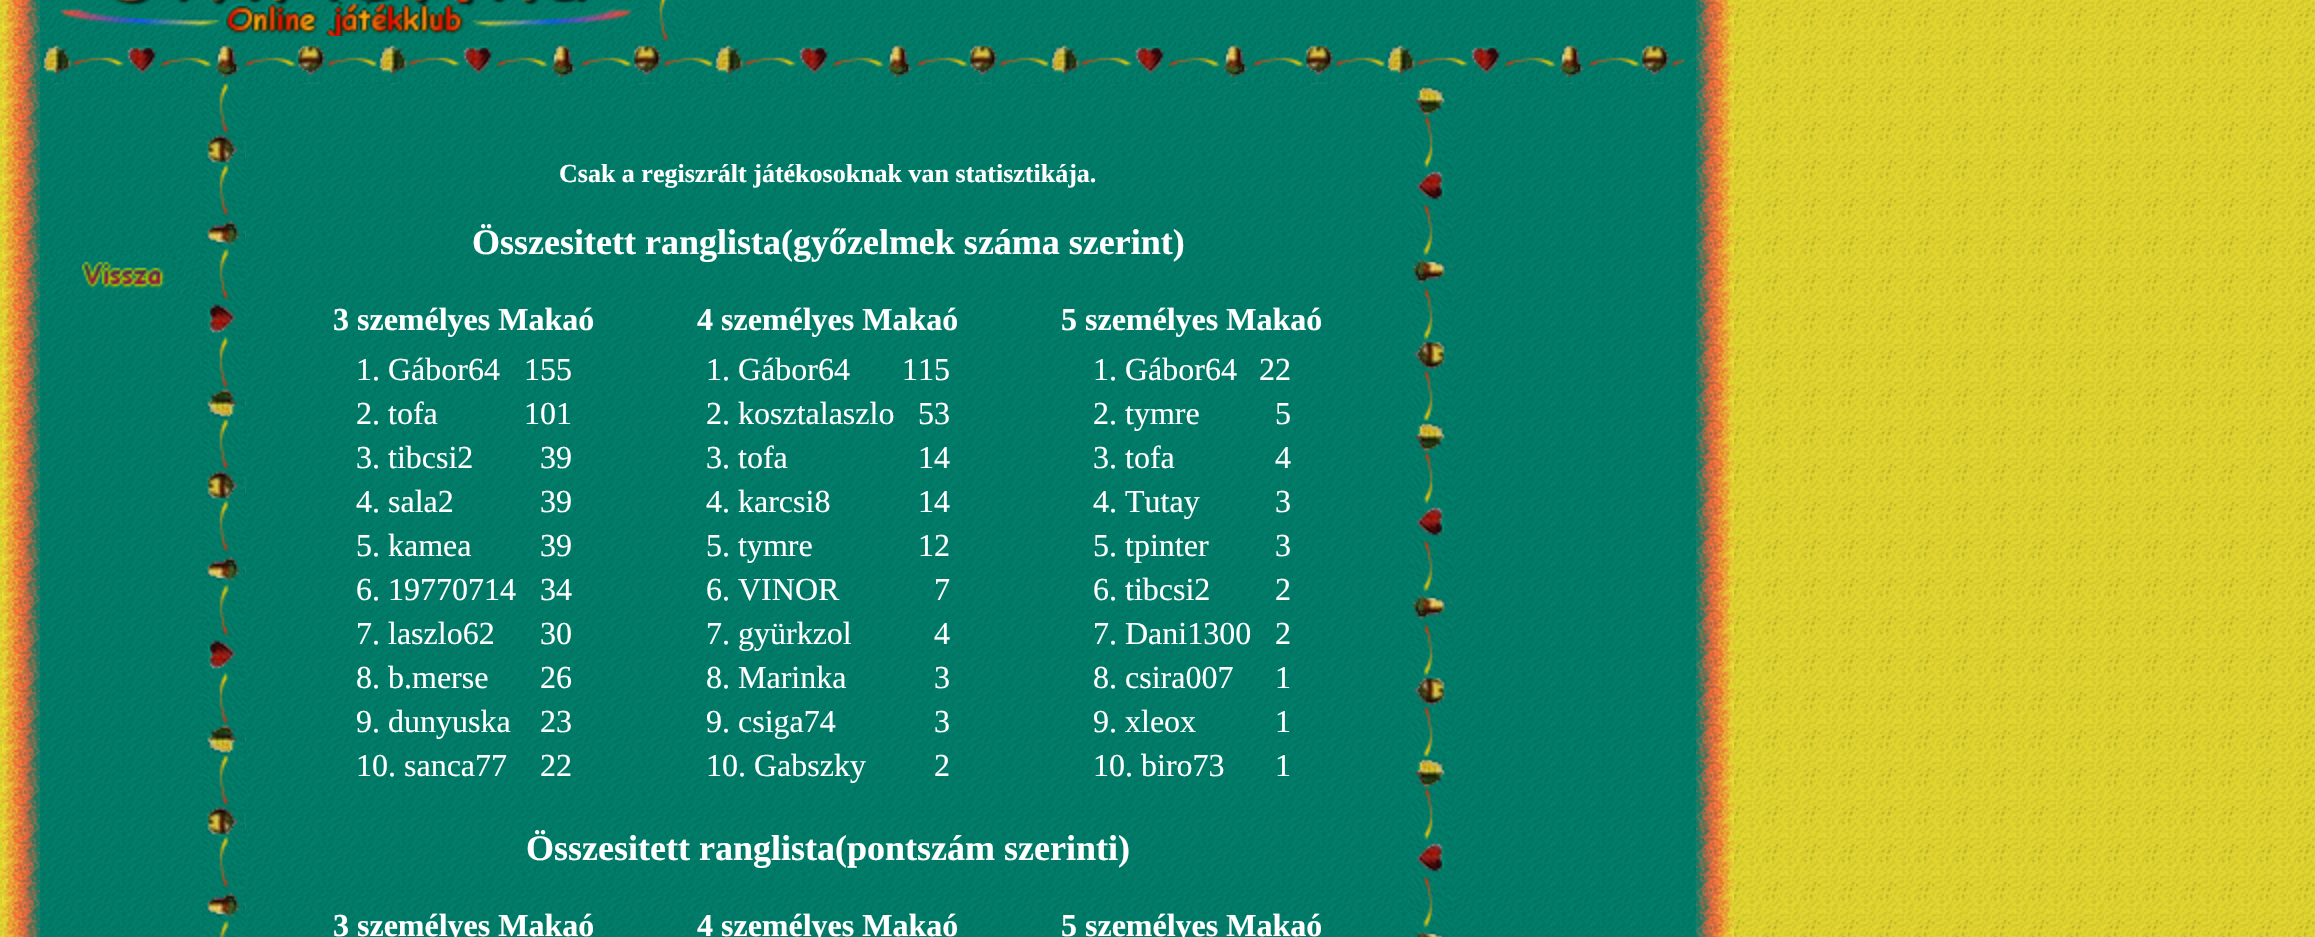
void draw(SkCanvas* canvas) {
	SkPaint fill;
	fill.setAntiAlias(true);
	auto makeFont = [&](const char* family, int weight, float size, bool italic = false) {
		SkFontStyle style(weight, SkFontStyle::kNormal_Width,
			italic ? SkFontStyle::kItalic_Slant : SkFontStyle::kUpright_Slant);
		SkFont result(fontMgr->matchFamilyStyle(family, style), size);
		result.setSubpixel(true);
		return result;
	};
	auto text = [&](const char* s, float x, float y, const SkFont& font) {
		canvas->drawString(s, x, y, font, fill);
	};
	auto picture = [&](const char* path, float l, float t, float r, float b) {
		auto image = SkImages::DeferredFromEncodedData(SkData::MakeFromFileName(path));
		canvas->drawImageRect(image, SkRect::MakeLTRB(l, t, r, b), SkSamplingOptions());
	};
	canvas->clear(0xFFFFFFFF);
	picture("image0.png", 0, 0, 2315, 937);
	picture("image1.png", 2, 0, 40, 937);
	picture("image2.png", 40, 0, 1696, 937);
	picture("image3.png", 42, 0, 642, 36);
	picture("image4.png", 644, 0, 686, 42);
	picture("image5.png", 40, 42, 1684, 84);
	picture("image6.png", 42, 254, 202, 294);
	picture("image7.png", 204, 84, 246, 937);
	picture("image8.png", 1410, 84, 1452, 937);
	picture("image9.png", 1696, 0, 1734, 937);
	auto font1 = makeFont("Liberation Serif", 700, 26);
	fill.setColor(0xFFFFFFFF);
	text("Csak a regiszrált játékosoknak van statisztikája.", 559, 182, font1);
	auto font2 = makeFont("Liberation Serif", 700, 36);
	text("Összesitett ranglista(győzelmek száma szerint)", 472, 254, font2);
	auto font3 = makeFont("Liberation Serif", 700, 32);
	text("3 személyes Makaó", 333, 330, font3);
	text("4 személyes Makaó", 697, 330, font3);
	text("5 személyes Makaó", 1061, 330, font3);
	auto font4 = makeFont("Liberation Serif", 400, 32);
	text("1. Gábor64", 356, 380, font4);
	text("155", 524, 380, font4);
	text("2. tofa", 356, 424, font4);
	text("101", 524, 424, font4);
	text("3. tibcsi2", 356, 468, font4);
	text("39", 540, 468, font4);
	text("4. sala2", 356, 512, font4);
	text("39", 540, 512, font4);
	text("5. kamea", 356, 556, font4);
	text("39", 540, 556, font4);
	text("6. 19770714", 356, 600, font4);
	text("34", 540, 600, font4);
	text("7. laszlo62", 356, 644, font4);
	text("30", 540, 644, font4);
	text("8. b.merse", 356, 688, font4);
	text("26", 540, 688, font4);
	text("9. dunyuska", 356, 732, font4);
	text("23", 540, 732, font4);
	text("10. sanca77", 356, 776, font4);
	text("22", 540, 776, font4);
	text("1. Gábor64", 706, 380, font4);
	text("115", 902, 380, font4);
	text("2. kosztalaszlo", 706, 424, font4);
	text("53", 918, 424, font4);
	text("3. tofa", 706, 468, font4);
	text("14", 918, 468, font4);
	text("4. karcsi8", 706, 512, font4);
	text("14", 918, 512, font4);
	text("5. tymre", 706, 556, font4);
	text("12", 918, 556, font4);
	text("6. VINOR", 706, 600, font4);
	text("7", 934, 600, font4);
	text("7. gyürkzol", 706, 644, font4);
	text("4", 934, 644, font4);
	text("8. Marinka", 706, 688, font4);
	text("3", 934, 688, font4);
	text("9. csiga74", 706, 732, font4);
	text("3", 934, 732, font4);
	text("10. Gabszky", 706, 776, font4);
	text("2", 934, 776, font4);
	text("1. Gábor64", 1093, 380, font4);
	text("22", 1259, 380, font4);
	text("2. tymre", 1093, 424, font4);
	text("5", 1275, 424, font4);
	text("3. tofa", 1093, 468, font4);
	text("4", 1275, 468, font4);
	text("4. Tutay", 1093, 512, font4);
	text("3", 1275, 512, font4);
	text("5. tpinter", 1093, 556, font4);
	text("3", 1275, 556, font4);
	text("6. tibcsi2", 1093, 600, font4);
	text("2", 1275, 600, font4);
	text("7. Dani1300", 1093, 644, font4);
	text("2", 1275, 644, font4);
	text("8. csira007", 1093, 688, font4);
	text("1", 1275, 688, font4);
	text("9. xleox", 1093, 732, font4);
	text("1", 1275, 732, font4);
	text("10. biro73", 1093, 776, font4);
	text("1", 1275, 776, font4);
	text("Összesitett ranglista(pontszám szerinti)", 526, 860, font2);
	text("3 személyes Makaó", 333, 936, font3);
	text("4 személyes Makaó", 697, 936, font3);
	text("5 személyes Makaó", 1061, 936, font3);
}
